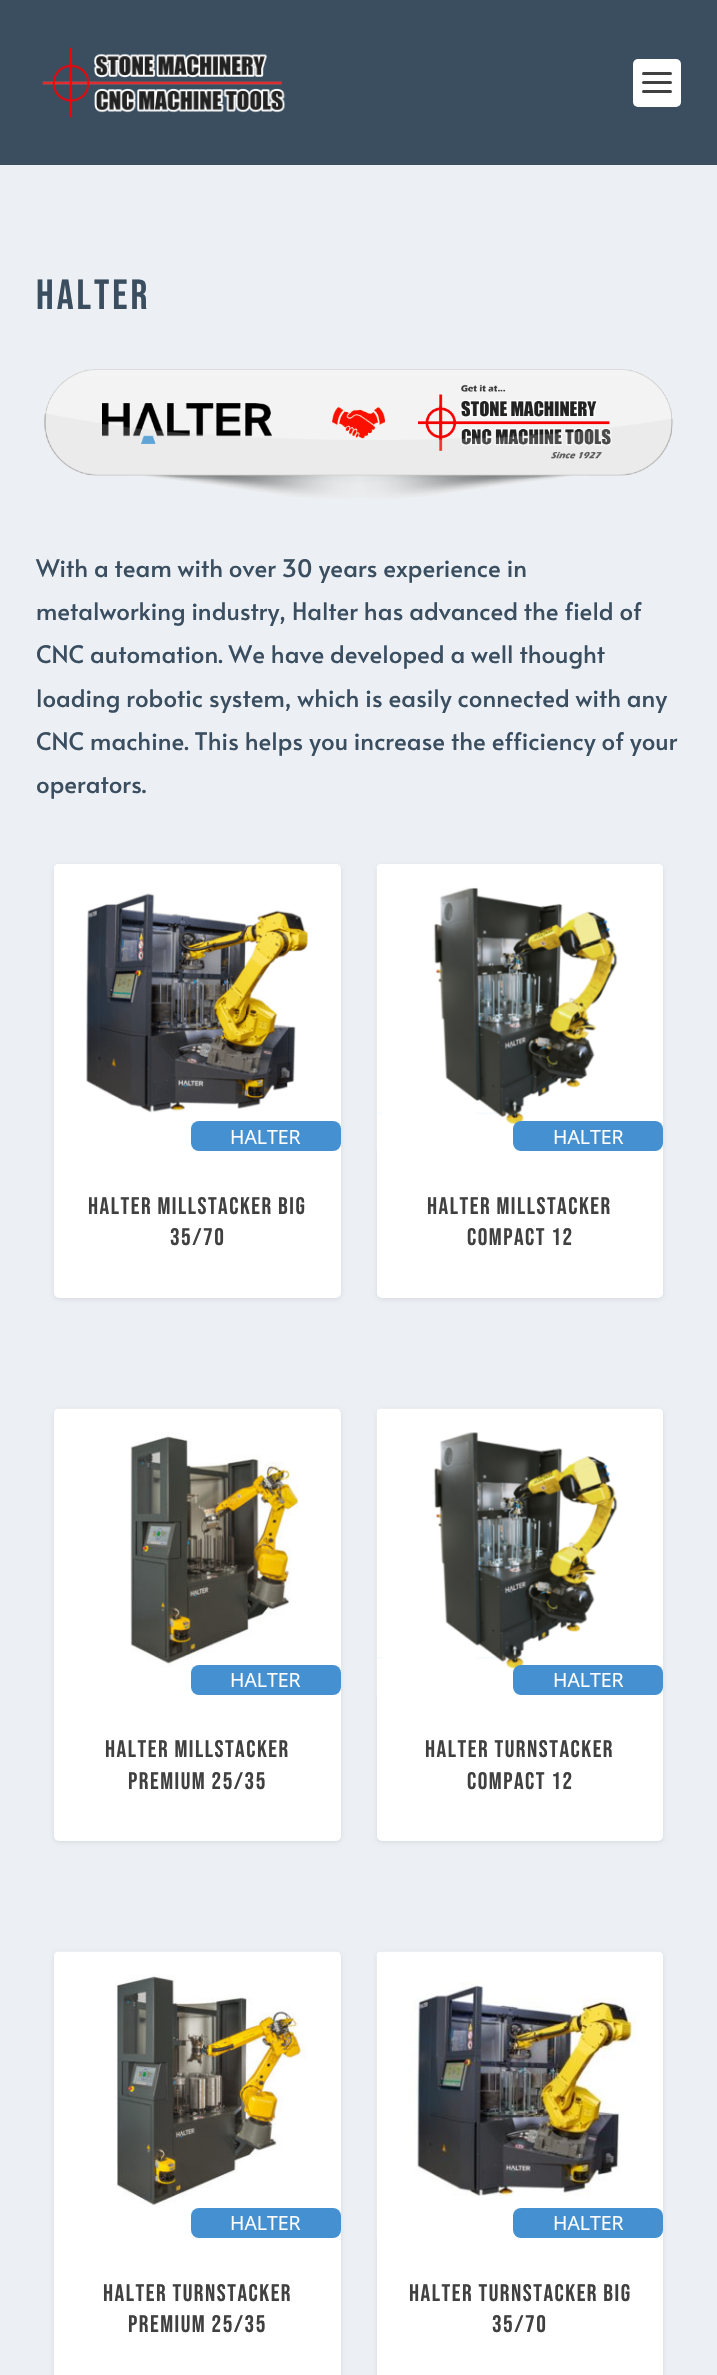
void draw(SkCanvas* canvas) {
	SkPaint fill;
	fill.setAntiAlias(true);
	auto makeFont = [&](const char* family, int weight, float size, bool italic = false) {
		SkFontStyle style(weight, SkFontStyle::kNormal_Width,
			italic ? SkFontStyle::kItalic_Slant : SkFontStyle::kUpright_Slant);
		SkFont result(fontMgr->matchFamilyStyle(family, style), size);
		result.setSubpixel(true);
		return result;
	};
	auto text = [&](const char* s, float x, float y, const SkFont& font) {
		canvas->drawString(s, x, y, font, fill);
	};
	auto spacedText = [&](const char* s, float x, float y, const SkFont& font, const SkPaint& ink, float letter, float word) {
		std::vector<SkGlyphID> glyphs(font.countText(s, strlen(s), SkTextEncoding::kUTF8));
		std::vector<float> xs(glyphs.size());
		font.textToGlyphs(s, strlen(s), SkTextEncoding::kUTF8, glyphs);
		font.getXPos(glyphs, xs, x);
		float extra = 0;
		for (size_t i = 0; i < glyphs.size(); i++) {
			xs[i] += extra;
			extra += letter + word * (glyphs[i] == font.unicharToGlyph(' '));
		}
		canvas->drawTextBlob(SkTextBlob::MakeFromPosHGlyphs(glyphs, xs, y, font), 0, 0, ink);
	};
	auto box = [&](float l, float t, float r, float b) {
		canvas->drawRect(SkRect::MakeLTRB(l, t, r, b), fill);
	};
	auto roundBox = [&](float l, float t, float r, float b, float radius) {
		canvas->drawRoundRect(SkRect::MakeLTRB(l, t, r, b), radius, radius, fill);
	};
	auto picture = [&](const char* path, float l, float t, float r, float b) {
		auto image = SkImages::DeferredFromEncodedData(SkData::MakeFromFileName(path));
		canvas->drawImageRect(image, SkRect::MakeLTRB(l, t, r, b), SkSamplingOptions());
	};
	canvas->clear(0xFFECF0F5);
	fill.setColor(0xFF3A4E60);
	box(0, 0, 717, 165);
	picture("image0.png", 42, 47, 285, 118);
	fill.setColor(0xFFFFFFFF);
	roundBox(633, 59, 681, 107, 5);
	fill.setColor(0xFF404040);
	roundBox(642, 72, 672, 75, 1.5f);
	roundBox(642, 81, 672, 84, 1.5f);
	roundBox(642, 90, 672, 93, 1.5f);
	picture("image1.png", 44, 369, 674, 476);
	picture("image2.png", 130, 475, 588, 499);
	fill.setColor(0x1A000000);
	fill.setMaskFilter(SkMaskFilter::MakeBlur(kNormal_SkBlurStyle, 2));
	canvas->drawRoundRect(SkRect::MakeLTRB(54, 866, 341, 1299), 5, 5, fill);
	fill.setMaskFilter(nullptr);
	fill.setColor(0xFFFFFFFF);
	roundBox(54, 864, 341, 1298, 5);
	picture("image3.png", 54, 864, 340, 1113);
	fill.setColor(0xFF4490D0);
	roundBox(191, 1121, 341, 1151, 8);
	fill.setColor(0x1A000000);
	fill.setMaskFilter(SkMaskFilter::MakeBlur(kNormal_SkBlurStyle, 2));
	canvas->drawRoundRect(SkRect::MakeLTRB(377, 866, 663, 1299), 5, 5, fill);
	fill.setMaskFilter(nullptr);
	fill.setColor(0xFFFFFFFF);
	roundBox(377, 864, 663, 1298, 5);
	picture("image4.png", 376, 864, 663, 1150);
	fill.setColor(0xFF4490D0);
	roundBox(513, 1121, 663, 1151, 8);
	fill.setColor(0x1A000000);
	fill.setMaskFilter(SkMaskFilter::MakeBlur(kNormal_SkBlurStyle, 2));
	canvas->drawRoundRect(SkRect::MakeLTRB(54, 1410, 341, 1842), 5, 5, fill);
	fill.setMaskFilter(nullptr);
	fill.setColor(0xFFFFFFFF);
	roundBox(54, 1409, 341, 1841, 5);
	picture("image5.png", 54, 1408, 340, 1667);
	fill.setColor(0xFF4490D0);
	roundBox(191, 1665, 341, 1695, 8);
	fill.setColor(0x1A000000);
	fill.setMaskFilter(SkMaskFilter::MakeBlur(kNormal_SkBlurStyle, 2));
	canvas->drawRoundRect(SkRect::MakeLTRB(377, 1410, 663, 1842), 5, 5, fill);
	fill.setMaskFilter(nullptr);
	fill.setColor(0xFFFFFFFF);
	roundBox(377, 1409, 663, 1841, 5);
	picture("image6.png", 376, 1408, 663, 1695);
	fill.setColor(0xFF4490D0);
	roundBox(513, 1665, 663, 1695, 8);
	fill.setColor(0x1A000000);
	fill.setMaskFilter(SkMaskFilter::MakeBlur(kNormal_SkBlurStyle, 2));
	canvas->drawRoundRect(SkRect::MakeLTRB(54, 1953, 341, 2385), 5, 5, fill);
	fill.setMaskFilter(nullptr);
	fill.setColor(0xFFFFFFFF);
	roundBox(54, 1952, 341, 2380, 5);
	picture("image7.png", 54, 1951, 340, 2206);
	fill.setColor(0xFF4490D0);
	roundBox(191, 2208, 341, 2238, 8);
	fill.setColor(0x1A000000);
	fill.setMaskFilter(SkMaskFilter::MakeBlur(kNormal_SkBlurStyle, 2));
	canvas->drawRoundRect(SkRect::MakeLTRB(377, 1953, 663, 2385), 5, 5, fill);
	fill.setMaskFilter(nullptr);
	fill.setColor(0xFFFFFFFF);
	roundBox(377, 1952, 663, 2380, 5);
	picture("image8.png", 376, 1951, 663, 2238);
	fill.setColor(0xFF4490D0);
	roundBox(513, 2208, 663, 2238, 8);
	auto font1 = makeFont("Bebas Neue", 400, 42);
	fill.setColor(0xFF3A4E60);
	spacedText("HALTER", 36, 309, font1, fill, 3, 0);
	auto font2 = makeFont("Alata", 400, 24);
	text("With a team with over 30 years experience in", 36, 577, font2);
	text("metalworking industry, Halter has advanced the field of", 36, 620, font2);
	text("CNC automation. We have developed a well thought", 36, 663, font2);
	text("loading robotic system, which is easily connected with any", 36, 707, font2);
	text("CNC machine. This helps you increase the efficiency of your", 36, 750, font2);
	text("operators.", 36, 793, font2);
	auto font3 = makeFont("Open Sans", 400, 19.5f);
	fill.setColor(0xFFFFFFFF);
	text("HALTER", 230, 1144, font3);
	auto font4 = makeFont("Bebas Neue", 400, 24);
	fill.setColor(0xFF404040);
	spacedText("HALTER MILLSTACKER BIG", 88, 1214, font4, fill, 1.5f, 0);
	spacedText("35/70", 170, 1245, font4, fill, 1.5f, 0);
	fill.setColor(0xFFFFFFFF);
	text("HALTER", 553, 1144, font3);
	fill.setColor(0xFF404040);
	spacedText("HALTER MILLSTACKER", 427, 1214, font4, fill, 1.5f, 0);
	spacedText("COMPACT 12", 467, 1245, font4, fill, 1.5f, 0);
	fill.setColor(0xFFFFFFFF);
	text("HALTER", 230, 1687, font3);
	fill.setColor(0xFF404040);
	spacedText("HALTER MILLSTACKER", 105, 1757, font4, fill, 1.5f, 0);
	spacedText("PREMIUM 25/35", 128, 1789, font4, fill, 1.5f, 0);
	fill.setColor(0xFFFFFFFF);
	text("HALTER", 553, 1687, font3);
	fill.setColor(0xFF404040);
	spacedText("HALTER TURNSTACKER", 425, 1757, font4, fill, 1.5f, 0);
	spacedText("COMPACT 12", 467, 1789, font4, fill, 1.5f, 0);
	fill.setColor(0xFFFFFFFF);
	text("HALTER", 230, 2230, font3);
	fill.setColor(0xFF404040);
	spacedText("HALTER TURNSTACKER", 103, 2301, font4, fill, 1.5f, 0);
	spacedText("PREMIUM 25/35", 128, 2332, font4, fill, 1.5f, 0);
	fill.setColor(0xFFFFFFFF);
	text("HALTER", 553, 2230, font3);
	fill.setColor(0xFF404040);
	spacedText("HALTER TURNSTACKER BIG", 409, 2301, font4, fill, 1.5f, 0);
	spacedText("35/70", 492, 2332, font4, fill, 1.5f, 0);
}
